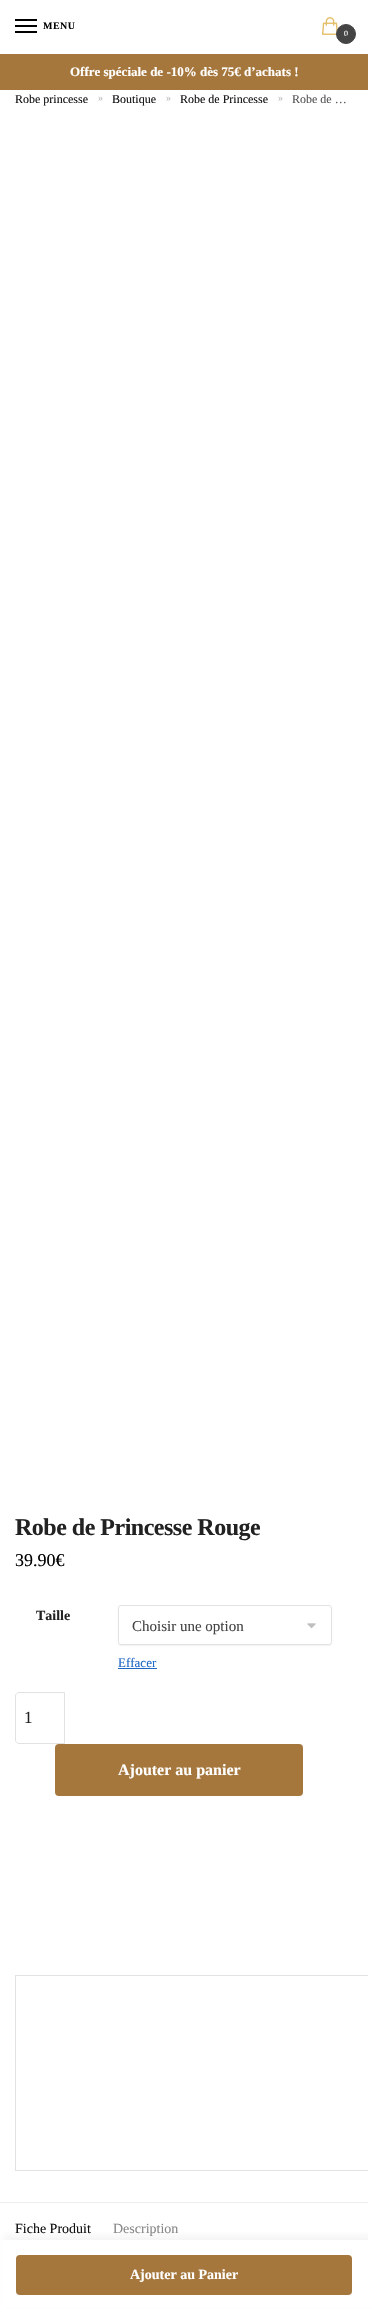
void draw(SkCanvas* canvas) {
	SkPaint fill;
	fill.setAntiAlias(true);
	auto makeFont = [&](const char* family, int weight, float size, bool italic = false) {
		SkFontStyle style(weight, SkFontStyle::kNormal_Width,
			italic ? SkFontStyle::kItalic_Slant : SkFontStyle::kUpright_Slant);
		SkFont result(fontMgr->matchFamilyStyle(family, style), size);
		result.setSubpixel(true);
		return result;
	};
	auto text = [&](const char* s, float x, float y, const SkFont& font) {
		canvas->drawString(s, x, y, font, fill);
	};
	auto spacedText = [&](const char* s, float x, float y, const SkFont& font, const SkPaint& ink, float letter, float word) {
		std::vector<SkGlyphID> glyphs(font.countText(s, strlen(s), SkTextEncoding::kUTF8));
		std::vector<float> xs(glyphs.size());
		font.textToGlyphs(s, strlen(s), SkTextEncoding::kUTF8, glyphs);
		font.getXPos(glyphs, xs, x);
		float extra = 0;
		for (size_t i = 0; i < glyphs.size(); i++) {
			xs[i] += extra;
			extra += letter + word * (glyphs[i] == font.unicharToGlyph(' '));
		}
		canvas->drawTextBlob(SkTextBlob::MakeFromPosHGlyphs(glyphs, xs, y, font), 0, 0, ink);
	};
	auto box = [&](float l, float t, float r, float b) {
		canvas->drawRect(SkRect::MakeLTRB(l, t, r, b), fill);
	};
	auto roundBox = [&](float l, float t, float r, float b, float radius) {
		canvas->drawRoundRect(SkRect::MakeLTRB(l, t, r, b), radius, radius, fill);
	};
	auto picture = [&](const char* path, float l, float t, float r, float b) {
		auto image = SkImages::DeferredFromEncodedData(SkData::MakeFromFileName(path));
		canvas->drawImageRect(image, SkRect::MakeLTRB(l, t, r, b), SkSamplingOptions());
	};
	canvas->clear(0xFFFFFFFF);
	fill.setColor(0xFF000000);
	box(15, 19, 37, 21);
	box(15, 25, 37, 27);
	box(15, 31, 37, 33);
	picture("image0.png", 322, 17, 338, 35);
	fill.setColor(0xFF444444);
	canvas->drawCircle(346, 34, 9.5f, fill);
	fill.setStyle(SkPaint::kStroke_Style);
	fill.setStrokeWidth(1);
	canvas->drawCircle(346, 34, 9.5f, fill);
	fill.setStyle(SkPaint::kFill_Style);
	fill.setColor(0xFFA6773C);
	box(0, 54, 368, 90);
	fill.setColor(0x0D000000);
	fill.setMaskFilter(SkMaskFilter::MakeBlur(kNormal_SkBlurStyle, 0.5f));
	canvas->drawRoundRect(SkRect::MakeLTRB(118, 1606, 332, 1646), 3, 3, fill);
	fill.setMaskFilter(nullptr);
	fill.setColor(0xFFFFFFFF);
	roundBox(118, 1605, 332, 1645, 3);
	picture("image1.png", 307, 1623, 316, 1629);
	fill.setStyle(SkPaint::kStroke_Style);
	fill.setColor(0xFFE2E2E2);
	canvas->drawRoundRect(SkRect::MakeLTRB(118.5f, 1605.5f, 331.5f, 1644.5f), 2.5f, 2.5f, fill);
	fill.setStyle(SkPaint::kFill_Style);
	fill.setColor(0xFF1E68C4);
	box(118, 1668, 157, 1669);
	fill.setStyle(SkPaint::kStroke_Style);
	fill.setColor(0xFFE2E2E2);
	canvas->drawPath(SkPathBuilder().moveTo(19, 1692.5f).lineTo(64.5f, 1692.5f).lineTo(64.5f, 1743.5f).lineTo(19, 1743.5f).cubicTo(17, 1743.5f, 15.5f, 1742, 15.5f, 1740).lineTo(15.5f, 1696).cubicTo(15.5f, 1694, 17, 1692.5f, 19, 1692.5f).close().detach(), fill);
	fill.setStyle(SkPaint::kFill_Style);
	fill.setColor(0xFFA6773C);
	roundBox(55, 1744, 303, 1796, 4);
	fill.setStyle(SkPaint::kStroke_Style);
	fill.setColor(0xFFE2E2E2);
	canvas->drawRect(SkRect::MakeLTRB(15.5f, 1975.5f, 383.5f, 2170.5f), fill);
	fill.setStyle(SkPaint::kFill_Style);
	fill.setColor(0xFFEEEEEE);
	box(0, 2202, 368, 2203);
	fill.setColor(0x0D323232);
	fill.setMaskFilter(SkMaskFilter::MakeBlur(kNormal_SkBlurStyle, 3));
	canvas->drawRect(SkRect::MakeLTRB(4, 2235, 372, 2305), fill);
	fill.setMaskFilter(nullptr);
	fill.setColor(0xFFFFFFFF);
	box(2, 2240, 368, 2307);
	fill.setColor(0xFFA6773C);
	roundBox(16, 2255, 352, 2295, 4);
	fill.setColor(0xFFFFFFFF);
	box(368, 1975, 383, 2307);
	auto font1 = makeFont("Liberation Serif", 700, 10);
	fill.setColor(0xFF000000);
	spacedText("MENU", 43, 29, font1, fill, 0.5f, 0);
	auto font2 = makeFont("Liberation Serif", 400, 8);
	fill.setColor(0xFFFFFFFF);
	text("0", 344, 36, font2);
	auto font3 = makeFont("Liberation Serif", 700, 13);
	text("Offre spéciale de -10% dès 75€ d’achats !", 70, 76, font3);
	auto font4 = makeFont("Liberation Serif", 400, 12);
	fill.setColor(0xFF111111);
	text("Robe princesse", 15, 103, font4);
	auto font5 = makeFont("Liberation Serif", 400, 10);
	fill.setColor(0xFFBBBBBB);
	text("»", 98, 101, font5);
	fill.setColor(0xFF111111);
	text("Boutique", 112, 103, font4);
	fill.setColor(0xFFBBBBBB);
	text("»", 166, 101, font5);
	fill.setColor(0xFF111111);
	text("Robe de Princesse", 180, 103, font4);
	fill.setColor(0xFFBBBBBB);
	text("»", 278, 101, font5);
	fill.setColor(0xFF555555);
	text("Robe de …", 292, 103, font4);
	auto font6 = makeFont("Liberation Serif", 700, 24);
	fill.setColor(0xFF222222);
	spacedText("Robe de Princesse Rouge", 15, 1535, font6, fill, -0.5f, 0);
	auto font7 = makeFont("Liberation Serif", 400, 18);
	fill.setColor(0xFF000000);
	text("39.90€", 15, 1566, font7);
	auto font8 = makeFont("Liberation Serif", 700, 14);
	fill.setColor(0xFF222222);
	text("Taille", 36, 1620, font8);
	auto font9 = makeFont("Liberation Serif", 400, 15);
	fill.setColor(0xFF444444);
	text("Choisir une option", 132, 1631, font9);
	auto font10 = makeFont("Liberation Serif", 400, 13);
	fill.setColor(0xFF1E68C4);
	text("Effacer", 118, 1667, font10);
	auto font11 = makeFont("Liberation Serif", 400, 17);
	fill.setColor(0xFF222222);
	text("1", 24, 1723, font11);
	auto font12 = makeFont("Liberation Serif", 700, 16);
	fill.setColor(0xFFFFFFFF);
	text("Ajouter au panier", 118, 1775, font12);
	auto font13 = makeFont("Liberation Serif", 400, 14);
	fill.setColor(0xFF111111);
	text("Fiche Produit", 15, 2233, font13);
	fill.setColor(0xFF888888);
	text("Description", 113, 2233, font13);
	fill.setColor(0xFFFFFFFF);
	text("Ajouter au Panier", 130, 2279, font8);
}
